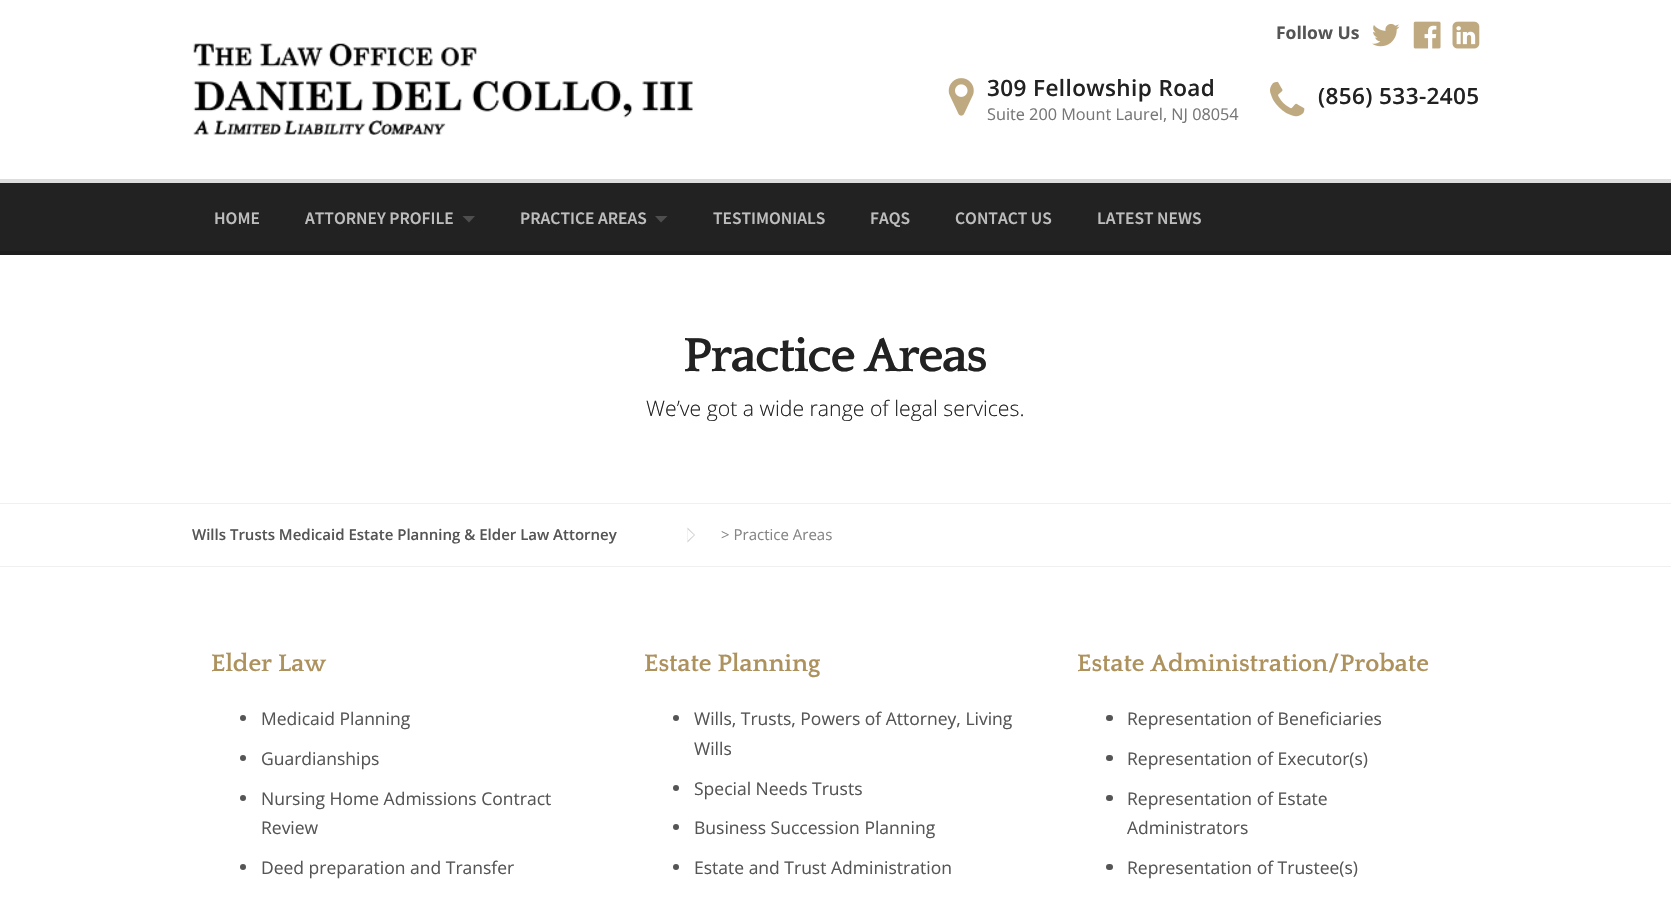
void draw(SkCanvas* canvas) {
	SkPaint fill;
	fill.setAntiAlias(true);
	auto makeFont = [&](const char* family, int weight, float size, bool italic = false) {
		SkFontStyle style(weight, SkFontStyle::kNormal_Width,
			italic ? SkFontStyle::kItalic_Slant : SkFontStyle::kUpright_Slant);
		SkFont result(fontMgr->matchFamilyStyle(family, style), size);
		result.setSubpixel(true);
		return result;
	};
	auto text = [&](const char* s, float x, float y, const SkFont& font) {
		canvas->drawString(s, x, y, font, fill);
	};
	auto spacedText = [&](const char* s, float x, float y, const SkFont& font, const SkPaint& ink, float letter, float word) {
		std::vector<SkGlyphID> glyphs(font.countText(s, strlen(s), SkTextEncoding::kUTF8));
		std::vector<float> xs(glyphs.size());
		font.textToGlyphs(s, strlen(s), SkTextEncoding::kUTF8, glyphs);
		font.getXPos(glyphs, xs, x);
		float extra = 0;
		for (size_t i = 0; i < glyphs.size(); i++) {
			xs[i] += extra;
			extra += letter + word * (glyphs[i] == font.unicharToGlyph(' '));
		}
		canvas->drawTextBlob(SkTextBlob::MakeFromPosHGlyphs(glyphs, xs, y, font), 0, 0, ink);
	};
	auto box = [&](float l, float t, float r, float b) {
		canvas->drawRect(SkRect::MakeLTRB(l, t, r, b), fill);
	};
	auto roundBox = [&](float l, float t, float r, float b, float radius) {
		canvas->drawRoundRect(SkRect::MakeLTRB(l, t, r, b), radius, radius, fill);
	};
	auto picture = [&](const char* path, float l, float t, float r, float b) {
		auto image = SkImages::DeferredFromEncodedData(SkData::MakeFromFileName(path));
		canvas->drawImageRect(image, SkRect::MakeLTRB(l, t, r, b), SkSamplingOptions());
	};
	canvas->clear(0xFFFFFFFF);
	picture("image0.png", 1372, 24, 1400, 47);
	picture("image1.png", 1413, 21, 1441, 49);
	picture("image2.png", 1452, 21, 1480, 49);
	picture("image3.png", 193, 43, 693, 135);
	picture("image4.png", 948, 78, 974, 116);
	picture("image5.png", 1270, 81, 1305, 117);
	fill.setColor(0xFF222222);
	box(0, 183, 1671, 251);
	fill.setColor(0xFFDDDDDD);
	box(0, 179, 1671, 183);
	fill.setColor(0xFF4E4E4E);
	canvas->drawPath(SkPathBuilder().moveTo(462.5f, 216).lineTo(475, 216).lineTo(469, 222.5f).close().detach(), fill);
	canvas->drawPath(SkPathBuilder().moveTo(655, 216).lineTo(667.5f, 216).lineTo(661, 222.5f).close().detach(), fill);
	fill.setColor(0xFF1D1D1D);
	box(0, 251, 1671, 255);
	fill.setColor(0xFFF0F0F0);
	box(0, 503, 1671, 504);
	box(0, 566, 1671, 567);
	fill.setColor(0xFFCCCCCC);
	canvas->drawPath(SkPathBuilder().moveTo(687.5f, 542.5f).lineTo(687.5f, 527.5f).lineTo(695, 535).close().detach(), fill);
	fill.setColor(0xFFFFFFFF);
	canvas->drawPath(SkPathBuilder().moveTo(687.5f, 541).lineTo(687.5f, 529).lineTo(694, 535).close().detach(), fill);
	fill.setColor(0xFF555555);
	canvas->drawCircle(243, 718, 3, fill);
	canvas->drawCircle(243, 758, 3, fill);
	canvas->drawCircle(243, 798, 3, fill);
	canvas->drawCircle(243, 867, 3, fill);
	canvas->drawCircle(676, 718, 3, fill);
	canvas->drawCircle(676, 788, 3, fill);
	canvas->drawCircle(676, 827, 3, fill);
	canvas->drawCircle(676, 867, 3, fill);
	roundBox(1106, 715, 1113, 721, 3);
	roundBox(1106, 755, 1113, 761, 3);
	roundBox(1106, 795, 1113, 801, 3);
	roundBox(1106, 864, 1113, 870, 3);
	auto font1 = makeFont("Open Sans", 700, 17.5f);
	text("Follow Us", 1276, 39, font1);
	auto font2 = makeFont("Open Sans", 600, 22.5f);
	fill.setColor(0xFF222222);
	spacedText("309 Fellowship Road", 987, 96, font2, fill, 0.4f, 0);
	auto font3 = makeFont("Open Sans", 400, 16.25f);
	fill.setColor(0xFF777777);
	text("Suite 200 Mount Laurel, NJ 08054", 987, 120, font3);
	fill.setColor(0xFF222222);
	spacedText("(856) 533-2405", 1318, 104, font2, fill, 0.4f, 0);
	auto font4 = makeFont("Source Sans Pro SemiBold", 600, 17.5f);
	fill.setColor(0xFFBDBDBD);
	text("HOME", 214, 224, font4);
	text("ATTORNEY PROFILE", 305, 224, font4);
	text("PRACTICE AREAS", 520, 224, font4);
	text("TESTIMONIALS", 713, 224, font4);
	text("FAQS", 870, 224, font4);
	text("CONTACT US", 955, 224, font4);
	text("LATEST NEWS", 1097, 224, font4);
	auto font5 = makeFont("Quattrocento", 700, 50);
	fill.setColor(0xFF222222);
	spacedText("Practice Areas", 683, 371, font5, fill, -1.6f, 0);
	auto font6 = makeFont("Open Sans", 300, 21.25f);
	text("We’ve got a wide range of legal services.", 646, 416, font6);
	auto font7 = makeFont("Open Sans", 600, 15);
	fill.setColor(0xFF555555);
	text("Wills Trusts Medicaid Estate Planning & Elder Law Attorney", 192, 540, font7);
	auto font8 = makeFont("Open Sans", 400, 15);
	fill.setColor(0xFF858585);
	text("> Practice Areas", 721, 540, font8);
	auto font9 = makeFont("Quattrocento", 700, 25);
	fill.setColor(0xFFAE925E);
	text("Elder Law", 211, 671, font9);
	auto font10 = makeFont("Open Sans", 400, 17.5f);
	fill.setColor(0xFF555555);
	text("Medicaid Planning", 261, 725, font10);
	text("Guardianships", 261, 765, font10);
	text("Nursing Home Admissions Contract", 261, 805, font10);
	text("Review", 261, 834, font10);
	text("Deed preparation and Transfer", 261, 874, font10);
	fill.setColor(0xFFAE925E);
	text("Estate Planning", 644, 671, font9);
	fill.setColor(0xFF555555);
	text("Wills, Trusts, Powers of Attorney, Living", 694, 725, font10);
	text("Wills", 694, 755, font10);
	text("Special Needs Trusts", 694, 795, font10);
	text("Business Succession Planning", 694, 834, font10);
	text("Estate and Trust Administration", 694, 874, font10);
	fill.setColor(0xFFAE925E);
	text("Estate Administration/Probate", 1077, 671, font9);
	fill.setColor(0xFF555555);
	text("Representation of Beneficiaries", 1127, 725, font10);
	text("Representation of Executor(s)", 1127, 765, font10);
	text("Representation of Estate", 1127, 805, font10);
	text("Administrators", 1127, 834, font10);
	text("Representation of Trustee(s)", 1127, 874, font10);
}
